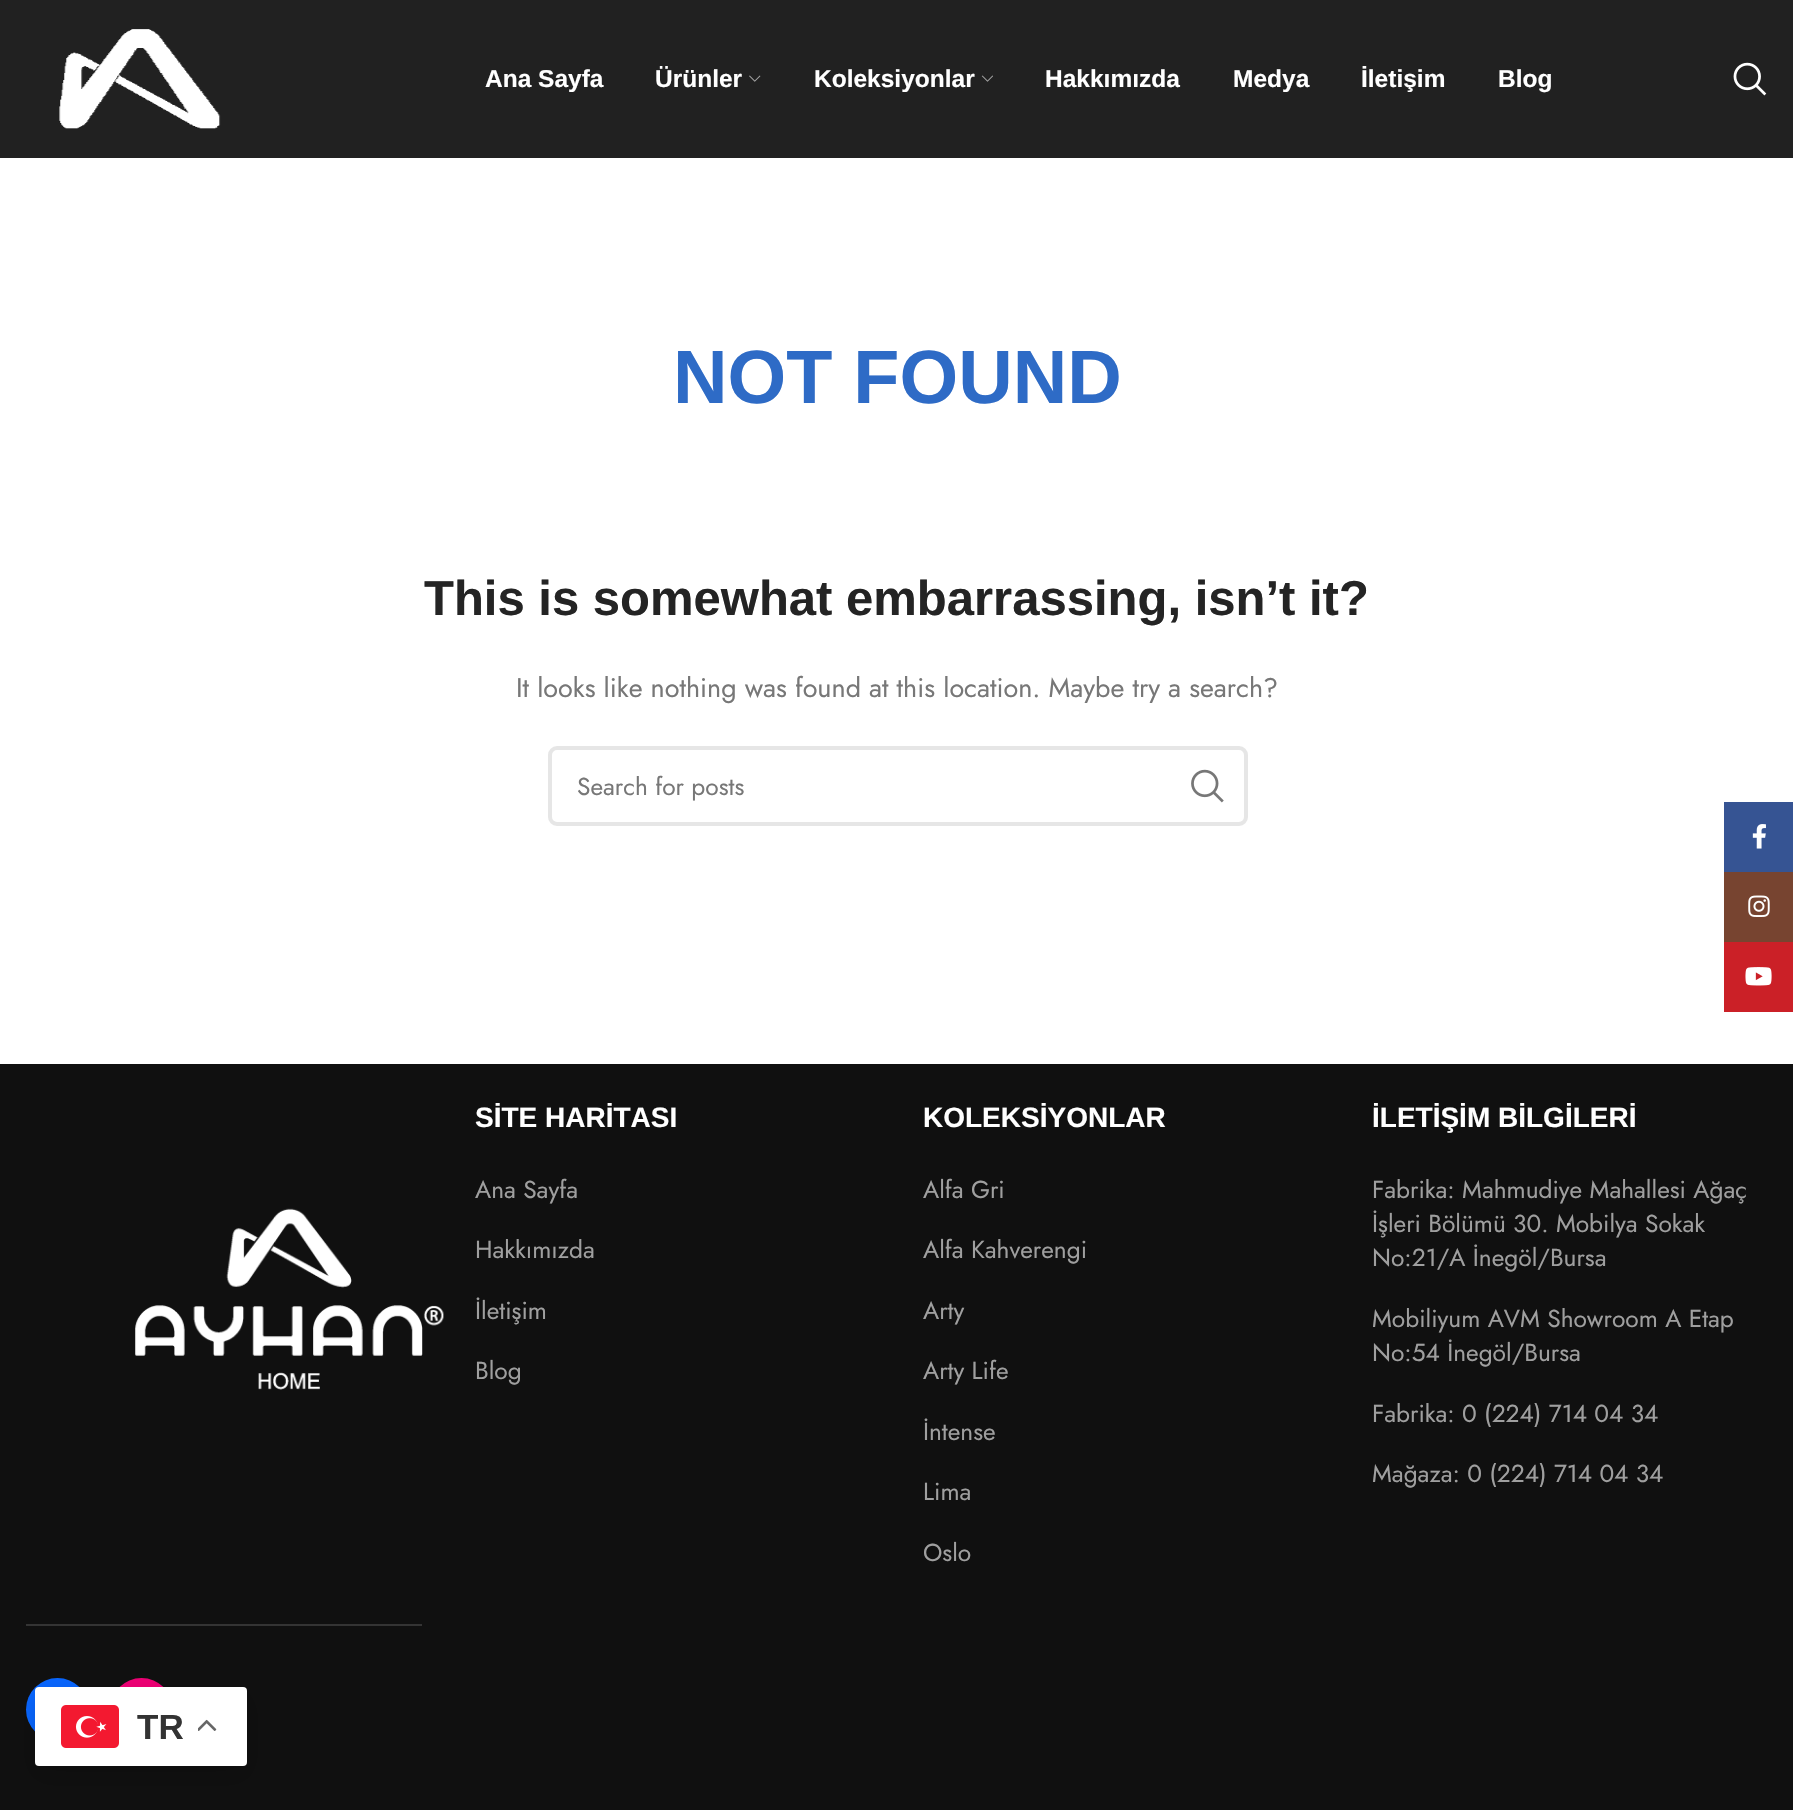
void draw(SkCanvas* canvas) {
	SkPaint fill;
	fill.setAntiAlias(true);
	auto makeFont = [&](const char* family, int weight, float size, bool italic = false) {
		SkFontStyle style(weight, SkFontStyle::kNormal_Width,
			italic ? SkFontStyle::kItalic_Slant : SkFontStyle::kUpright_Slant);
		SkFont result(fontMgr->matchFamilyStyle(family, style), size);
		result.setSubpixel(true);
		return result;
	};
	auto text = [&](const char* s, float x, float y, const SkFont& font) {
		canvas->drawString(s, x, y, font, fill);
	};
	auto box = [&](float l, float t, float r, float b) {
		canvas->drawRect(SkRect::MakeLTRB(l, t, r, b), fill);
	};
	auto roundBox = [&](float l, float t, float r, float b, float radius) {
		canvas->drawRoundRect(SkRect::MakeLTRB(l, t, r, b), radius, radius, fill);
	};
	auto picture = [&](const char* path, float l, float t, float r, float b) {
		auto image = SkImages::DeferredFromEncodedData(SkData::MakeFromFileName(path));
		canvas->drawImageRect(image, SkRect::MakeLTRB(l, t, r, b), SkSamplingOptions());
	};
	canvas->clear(0xFF101010);
	fill.setColor(0xFF212121);
	box(0, 0, 1793, 158);
	picture("image0.png", 59, 29, 221, 129);
	picture("image1.png", 749, 75, 761, 82);
	picture("image2.png", 981, 75, 993, 82);
	picture("image3.png", 1733, 62, 1767, 96);
	fill.setColor(0xFFFFFFFF);
	box(0, 158, 1793, 1064);
	fill.setStyle(SkPaint::kStroke_Style);
	fill.setStrokeWidth(4);
	fill.setColor(0xFFE6E6E6);
	canvas->drawRoundRect(SkRect::MakeLTRB(550, 748, 1246, 824), 7, 7, fill);
	picture("image4.png", 1191, 769, 1224, 803);
	fill.setStyle(SkPaint::kFill_Style);
	fill.setColor(0xFF343434);
	box(26, 1624, 422, 1626);
	picture("image5.png", 135, 1208, 444, 1390);
	fill.setColor(0xFF0866FF);
	canvas->drawCircle(57.5f, 1709.5f, 31.5f, fill);
	fill.setColor(0xFFF00075);
	canvas->drawCircle(141.5f, 1709.5f, 31.5f, fill);
	fill.setColor(0xFF365493);
	box(1724, 802, 1793, 872);
	picture("image6.png", 1752, 824, 1766, 849);
	fill.setColor(0xFF774430);
	box(1724, 872, 1793, 942);
	picture("image7.png", 1748, 895, 1770, 917);
	fill.setColor(0xFFCB2027);
	box(1724, 942, 1793, 1012);
	picture("image8.png", 1745, 967, 1772, 986);
	fill.setColor(0x26000000);
	fill.setMaskFilter(SkMaskFilter::MakeBlur(kNormal_SkBlurStyle, 13));
	canvas->drawRoundRect(SkRect::MakeLTRB(35, 1696, 247, 1775), 4, 4, fill);
	fill.setMaskFilter(nullptr);
	fill.setColor(0xFFFFFFFF);
	roundBox(35, 1687, 247, 1766, 4);
	picture("image9.png", 61, 1705, 119, 1748);
	picture("image10.png", 198, 1719, 217, 1731);
	auto font1 = makeFont("Liberation Sans", 700, 24.5f);
	text("Ana Sayfa", 485, 87, font1);
	text("Ürünler", 655, 87, font1);
	text("Koleksiyonlar", 814, 87, font1);
	text("Hakkımızda", 1045, 87, font1);
	text("Medya", 1233, 87, font1);
	text("İletişim", 1361, 87, font1);
	text("Blog", 1498, 87, font1);
	auto font2 = makeFont("Liberation Sans", 700, 75.5f);
	fill.setColor(0xFF2E6BC6);
	text("NOT FOUND", 673, 403, font2);
	auto font3 = makeFont("Liberation Sans", 700, 49);
	fill.setColor(0xFF242424);
	text("This is somewhat embarrassing, isn’t it?", 424, 615, font3);
	auto font4 = makeFont("Jost", 400, 26.95f);
	fill.setColor(0xFF777777);
	text("It looks like nothing was found at this location. Maybe try a search?", 516, 697, font4);
	auto font5 = makeFont("Jost", 400, 24.5f);
	text("Search for posts", 577, 795, font5);
	auto font6 = makeFont("Liberation Sans", 700, 28);
	fill.setColor(0xFFFFFFFF);
	text("SİTE HARİTASI", 475, 1127, font6);
	fill.setColor(0xFF9F9F9F);
	text("Ana Sayfa", 475, 1198, font5);
	text("Hakkımızda", 475, 1258, font5);
	text("İletişim", 475, 1319, font5);
	text("Blog", 475, 1379, font5);
	fill.setColor(0xFFFFFFFF);
	text("KOLEKSİYONLAR", 923, 1127, font6);
	fill.setColor(0xFF9F9F9F);
	text("Alfa Gri", 923, 1198, font5);
	text("Alfa Kahverengi", 923, 1258, font5);
	text("Arty", 923, 1319, font5);
	text("Arty Life", 923, 1379, font5);
	text("İntense", 923, 1440, font5);
	text("Lima", 923, 1500, font5);
	text("Oslo", 923, 1561, font5);
	fill.setColor(0xFFFFFFFF);
	text("İLETİŞİM BİLGİLERİ", 1372, 1127, font6);
	fill.setColor(0xFF9F9F9F);
	text("Fabrika: Mahmudiye Mahallesi Ağaç", 1372, 1198, font5);
	text("İşleri Bölümü 30. Mobilya Sokak", 1372, 1232, font5);
	text("No:21/A İnegöl/Bursa", 1372, 1266, font5);
	text("Mobiliyum AVM Showroom A Etap", 1372, 1327, font5);
	text("No:54 İnegöl/Bursa", 1372, 1361, font5);
	text("Fabrika: 0 (224) 714 04 34", 1372, 1422, font5);
	text("Mağaza: 0 (224) 714 04 34", 1372, 1482, font5);
	auto font7 = makeFont("Liberation Sans", 700, 35);
	fill.setColor(0xFF333333);
	text("TR", 137, 1739, font7);
}
